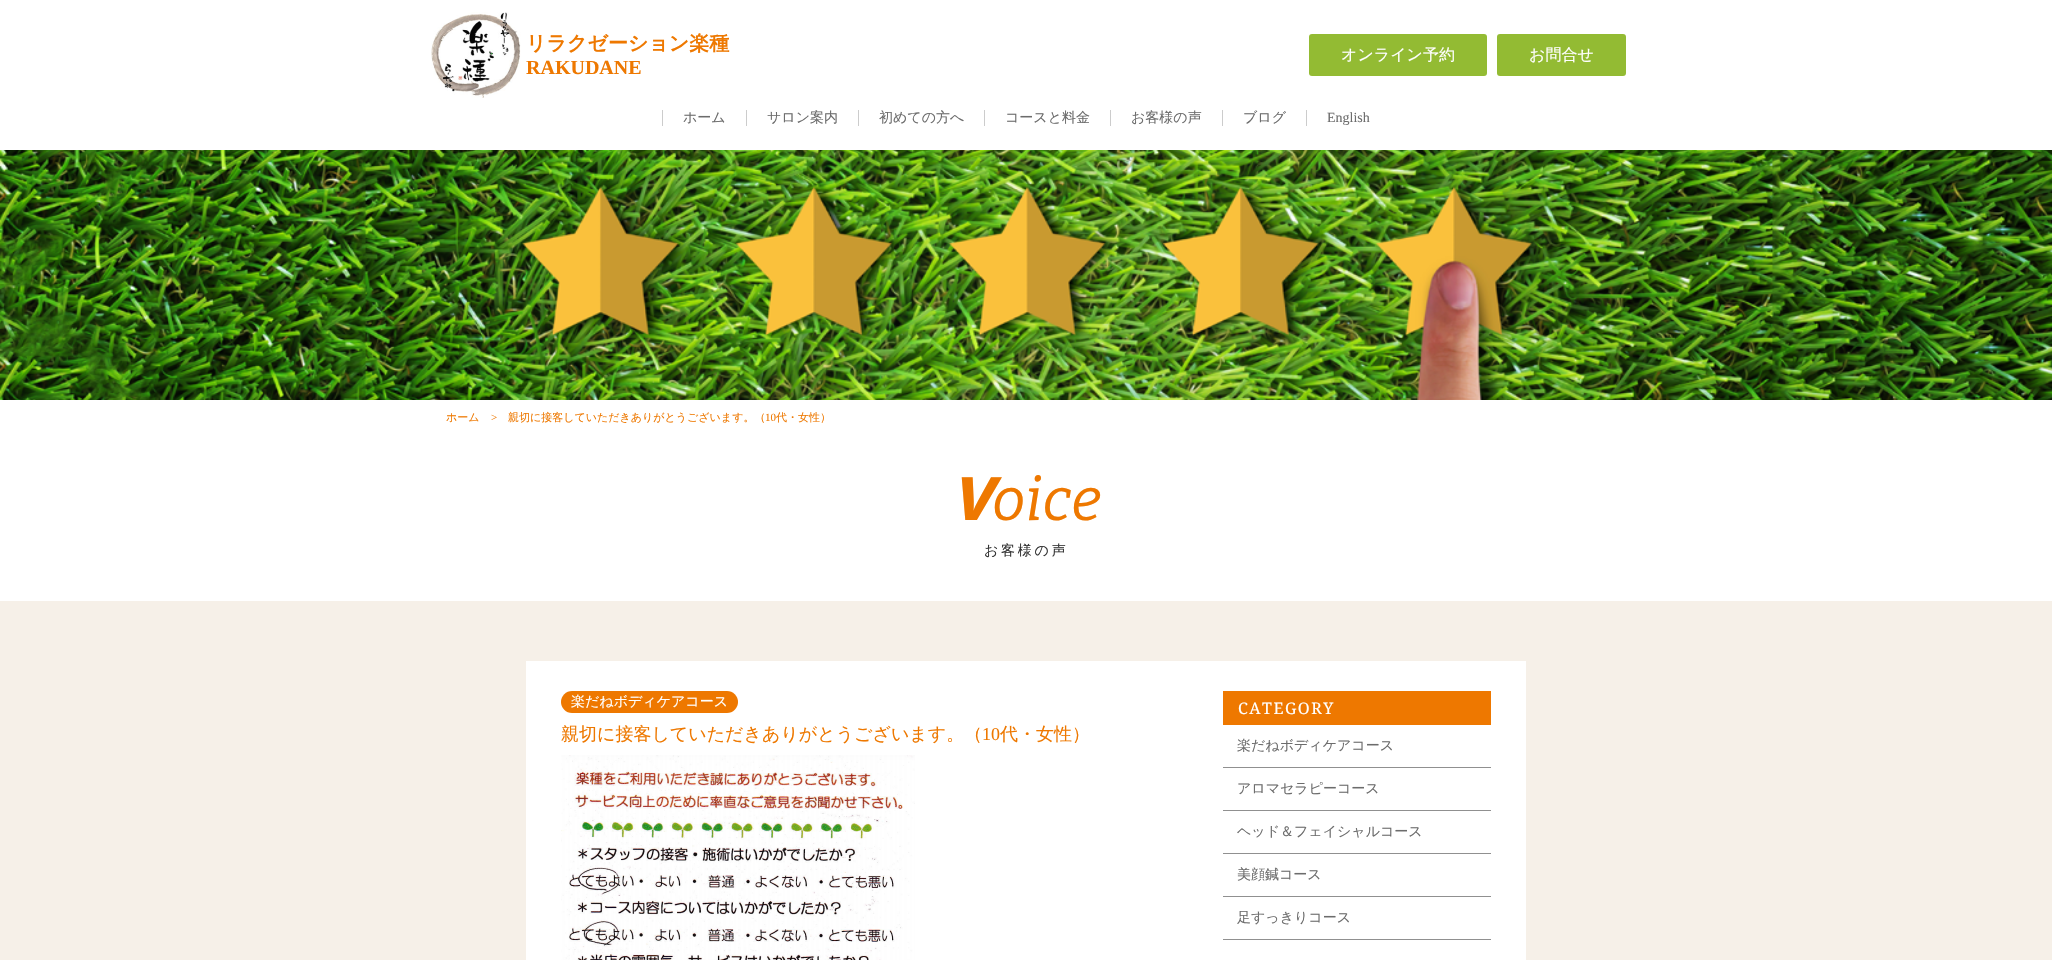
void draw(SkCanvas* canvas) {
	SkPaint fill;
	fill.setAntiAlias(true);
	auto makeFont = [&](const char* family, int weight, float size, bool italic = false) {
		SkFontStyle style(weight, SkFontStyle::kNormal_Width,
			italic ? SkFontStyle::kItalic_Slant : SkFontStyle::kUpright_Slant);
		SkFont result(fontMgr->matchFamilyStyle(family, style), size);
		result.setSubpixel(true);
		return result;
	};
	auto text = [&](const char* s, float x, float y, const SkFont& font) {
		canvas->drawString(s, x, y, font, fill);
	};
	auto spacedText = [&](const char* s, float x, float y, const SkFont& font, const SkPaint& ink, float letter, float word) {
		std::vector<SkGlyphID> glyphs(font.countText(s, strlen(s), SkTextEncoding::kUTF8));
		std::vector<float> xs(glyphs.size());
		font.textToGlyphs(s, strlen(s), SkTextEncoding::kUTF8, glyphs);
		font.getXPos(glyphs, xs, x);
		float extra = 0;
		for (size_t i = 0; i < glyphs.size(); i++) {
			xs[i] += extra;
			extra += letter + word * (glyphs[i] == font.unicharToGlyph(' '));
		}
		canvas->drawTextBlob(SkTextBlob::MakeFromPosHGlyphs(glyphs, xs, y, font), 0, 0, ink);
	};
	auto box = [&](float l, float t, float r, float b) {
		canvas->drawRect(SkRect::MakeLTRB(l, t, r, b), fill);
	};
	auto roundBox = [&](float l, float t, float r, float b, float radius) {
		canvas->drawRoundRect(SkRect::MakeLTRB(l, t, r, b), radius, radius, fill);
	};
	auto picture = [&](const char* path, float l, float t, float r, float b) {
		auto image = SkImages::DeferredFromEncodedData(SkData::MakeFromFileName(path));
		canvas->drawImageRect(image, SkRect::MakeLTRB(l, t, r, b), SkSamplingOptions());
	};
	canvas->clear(0xFFFFFFFF);
	picture("image0.png", 431, 12, 521, 98);
	fill.setColor(0xFF93BB33);
	roundBox(1309, 34, 1487, 76, 3);
	roundBox(1497, 34, 1626, 76, 3);
	fill.setColor(0xFFCCCCCC);
	box(662, 110, 663, 126);
	box(746, 110, 747, 126);
	box(858, 110, 859, 126);
	box(984, 110, 985, 126);
	box(1110, 110, 1111, 126);
	box(1222, 110, 1223, 126);
	box(1306, 110, 1307, 126);
	picture("image1.png", 0, 150, 2052, 400);
	fill.setColor(0xFFF6F0E8);
	box(0, 601, 2052, 960);
	fill.setColor(0xFFFFFFFF);
	box(526, 661, 1526, 960);
	fill.setColor(0xFFEE7800);
	roundBox(561, 691, 738, 713, 11);
	picture("image2.png", 561, 755, 915, 960);
	box(1223, 691, 1491, 725);
	fill.setColor(0xFF909090);
	box(1223, 767, 1491, 768);
	box(1223, 810, 1491, 811);
	box(1223, 853, 1491, 854);
	box(1223, 896, 1491, 897);
	box(1223, 939, 1491, 940);
	auto font1 = makeFont("WenQuanYi Zen Hei", 700, 20);
	fill.setColor(0xFFEE7800);
	text("リラクゼーション楽種", 526, 50, font1);
	auto font2 = makeFont("Liberation Serif", 700, 20);
	text("RAKUDANE", 526, 74, font2);
	auto font3 = makeFont("WenQuanYi Zen Hei", 500, 16);
	fill.setColor(0xFFFFFFFF);
	text("オンライン予約", 1341, 60, font3);
	text("お問合せ", 1529, 60, font3);
	auto font4 = makeFont("WenQuanYi Zen Hei", 500, 14);
	fill.setColor(0xFF6C6C6C);
	text("ホーム", 683, 122, font4);
	text("サロン案内", 767, 122, font4);
	text("初めての方へ", 879, 122, font4);
	text("コースと料金", 1005, 122, font4);
	text("お客様の声", 1131, 122, font4);
	text("ブログ", 1243, 122, font4);
	auto font5 = makeFont("Liberation Serif", 400, 14);
	text("English", 1327, 122, font5);
	auto font6 = makeFont("WenQuanYi Zen Hei", 500, 11);
	fill.setColor(0xFFEE7800);
	text("ホーム", 446, 421, font6);
	auto font7 = makeFont("Liberation Serif", 400, 11);
	text(">", 491, 421, font7);
	text("親切に接客していただきありがとうございます。（", 508, 421, font6);
	text("10", 765, 421, font7);
	text("代・女性）", 776, 421, font6);
	auto font8 = makeFont("Noto Sans", 800, 60, true);
	text("V", 951, 520, font8);
	auto font9 = makeFont("Bitter", 100, 60, true);
	text("oice", 992, 520, font9);
	fill.setColor(0xFF333333);
	spacedText("お客様の声", 984, 555, font4, fill, 2.75f, 0);
	fill.setColor(0xFFFFFFFF);
	text("楽だねボディケアコース", 571, 706, font4);
	auto font10 = makeFont("WenQuanYi Zen Hei", 500, 18);
	fill.setColor(0xFFEE7800);
	text("親切に接客していただきありがとうございます。（", 561, 740, font10);
	auto font11 = makeFont("Liberation Serif", 400, 18);
	text("10", 982, 740, font11);
	text("代・女性）", 1000, 740, font10);
	auto font12 = makeFont("Noto Serif", 400, 16);
	fill.setColor(0xFFFFFFFF);
	spacedText("CATEGORY", 1238, 714, font12, fill, 1.5f, 0);
	fill.setColor(0xFF6C6C6C);
	text("楽だねボディケアコース", 1237, 750, font4);
	text("アロマセラピーコース", 1237, 793, font4);
	text("ヘッド＆フェイシャルコース", 1237, 836, font4);
	text("美顔鍼コース", 1237, 879, font4);
	text("足すっきりコース", 1237, 922, font4);
}
